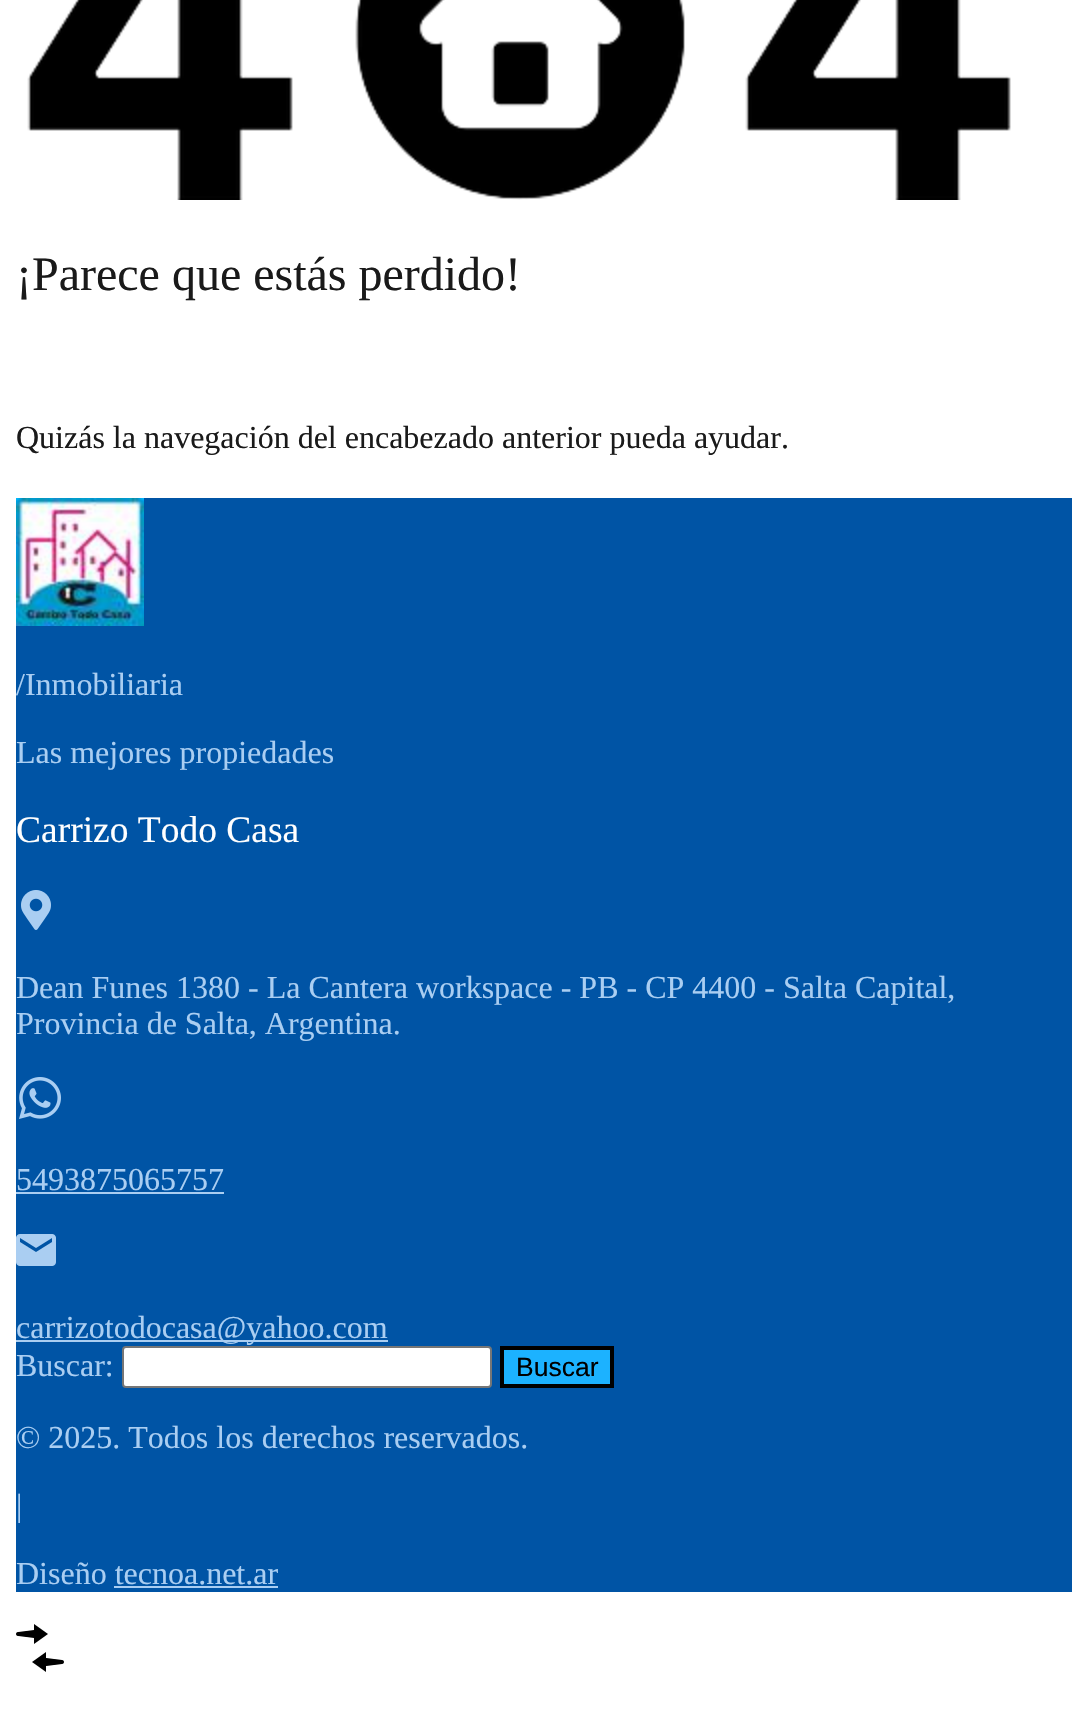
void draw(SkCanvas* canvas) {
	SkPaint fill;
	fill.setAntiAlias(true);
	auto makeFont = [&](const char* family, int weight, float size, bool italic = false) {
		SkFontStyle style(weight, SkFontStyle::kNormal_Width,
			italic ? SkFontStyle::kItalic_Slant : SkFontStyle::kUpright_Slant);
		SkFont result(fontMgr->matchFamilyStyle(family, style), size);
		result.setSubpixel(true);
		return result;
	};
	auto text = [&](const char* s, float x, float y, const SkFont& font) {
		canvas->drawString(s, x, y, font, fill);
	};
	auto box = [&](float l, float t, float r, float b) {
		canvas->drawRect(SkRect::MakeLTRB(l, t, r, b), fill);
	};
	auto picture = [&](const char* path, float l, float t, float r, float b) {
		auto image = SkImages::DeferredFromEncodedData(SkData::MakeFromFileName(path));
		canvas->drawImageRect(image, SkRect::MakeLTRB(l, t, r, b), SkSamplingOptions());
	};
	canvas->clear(0xFFFFFFFF);
	picture("image0.png", 27, 0, 1011, 200);
	fill.setColor(0xFF0054A5);
	box(16, 498, 1072, 1592);
	picture("image1.png", 16, 498, 144, 626);
	picture("image2.png", 21, 890, 51, 930);
	picture("image3.png", 19, 1077, 61, 1119);
	fill.setColor(0xFFAACEF2);
	box(16, 1192, 224, 1194);
	picture("image4.png", 16, 1234, 56, 1266);
	box(16, 1340, 388, 1342);
	fill.setColor(0xFFFFFFFF);
	canvas->drawRoundRect(SkRect::MakeLTRB(123, 1347, 491, 1387), 3, 3, fill);
	fill.setStyle(SkPaint::kStroke_Style);
	fill.setStrokeWidth(2);
	fill.setColor(0xFF767676);
	canvas->drawRoundRect(SkRect::MakeLTRB(123, 1347, 491, 1387), 3, 3, fill);
	fill.setStyle(SkPaint::kFill_Style);
	fill.setColor(0xFF1CB2FF);
	canvas->drawRect(SkRect::MakeLTRB(502, 1348, 612, 1386), fill);
	fill.setStyle(SkPaint::kStroke_Style);
	fill.setStrokeWidth(4);
	fill.setColor(0xFF000000);
	canvas->drawRect(SkRect::MakeLTRB(502, 1348, 612, 1386), fill);
	fill.setStyle(SkPaint::kFill_Style);
	fill.setColor(0xFFAACEF2);
	box(114, 1586, 278, 1588);
	picture("image5.png", 16, 1624, 64, 1672);
	auto font1 = makeFont("Liberation Serif", 400, 48);
	fill.setColor(0xFF1A1A1A);
	text("¡Parece que estás perdido!", 16, 290, font1);
	auto font2 = makeFont("Liberation Serif", 400, 32);
	text("Quizás la navegación del encabezado anterior pueda ayudar.", 16, 448, font2);
	fill.setColor(0xFFAACEF2);
	text("/Inmobiliaria", 16, 695, font2);
	text("Las mejores propiedades", 16, 763, font2);
	auto font3 = makeFont("Liberation Serif", 400, 37.5f);
	fill.setColor(0xFFFFFFFF);
	text("Carrizo Todo Casa", 16, 842, font3);
	fill.setColor(0xFFAACEF2);
	text("Dean Funes 1380 - La Cantera workspace - PB - CP 4400 - Salta Capital,", 16, 998, font2);
	text("Provincia de Salta, Argentina.", 16, 1034, font2);
	text("5493875065757", 16, 1190, font2);
	text("carrizotodocasa@yahoo.com", 16, 1338, font2);
	text("Buscar:", 16, 1376, font2);
	auto font4 = makeFont("Liberation Sans", 400, 26.5f);
	fill.setColor(0xFF000000);
	text("Buscar", 516, 1376, font4);
	fill.setColor(0xFFAACEF2);
	text("© 2025. Todos los derechos reservados.", 16, 1448, font2);
	text("|", 16, 1516, font2);
	text("Diseño tecnoa.net.ar", 16, 1584, font2);
}
